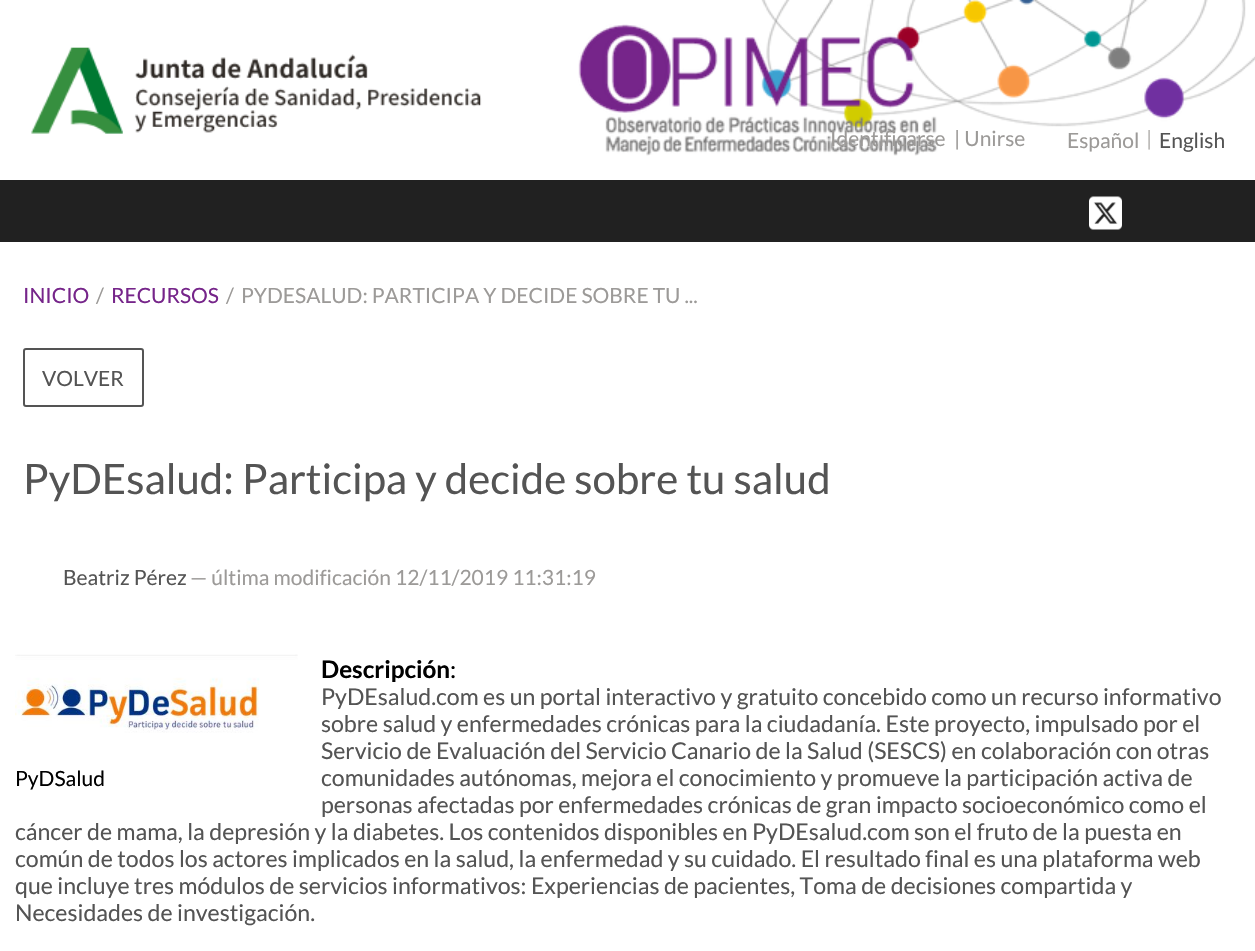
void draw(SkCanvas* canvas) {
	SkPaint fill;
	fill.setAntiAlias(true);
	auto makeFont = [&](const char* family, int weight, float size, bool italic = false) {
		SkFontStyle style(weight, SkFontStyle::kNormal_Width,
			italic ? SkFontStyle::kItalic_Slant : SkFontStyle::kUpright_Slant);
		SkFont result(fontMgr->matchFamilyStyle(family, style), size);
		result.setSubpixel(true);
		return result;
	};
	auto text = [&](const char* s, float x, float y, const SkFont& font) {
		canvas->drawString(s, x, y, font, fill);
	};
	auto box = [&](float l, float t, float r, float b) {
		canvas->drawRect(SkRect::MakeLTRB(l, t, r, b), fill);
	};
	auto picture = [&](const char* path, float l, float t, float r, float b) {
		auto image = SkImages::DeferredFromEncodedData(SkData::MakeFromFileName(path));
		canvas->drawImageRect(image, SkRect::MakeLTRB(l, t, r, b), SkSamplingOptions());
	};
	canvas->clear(0xFFFFFFFF);
	picture("image0.png", 761, 0, 1255, 128);
	picture("image1.png", 31, 47, 482, 134);
	picture("image2.png", 578, 24, 938, 156);
	fill.setColor(0xFF212121);
	box(0, 180, 1255, 242);
	picture("image3.png", 1089, 196, 1122, 230);
	fill.setStyle(SkPaint::kStroke_Style);
	fill.setStrokeWidth(2);
	fill.setColor(0xFF545454);
	canvas->drawRoundRect(SkRect::MakeLTRB(24, 349, 143, 406), 2, 2, fill);
	picture("image4.png", 15, 654, 298, 733);
	auto font1 = makeFont("Lato", 400, 21);
	fill.setStyle(SkPaint::kFill_Style);
	fill.setColor(0xFF9C9A98);
	text("Identificarse", 830, 146, font1);
	text("| Unirse", 954, 146, font1);
	text("Español", 1067, 148, font1);
	fill.setColor(0xFFB7B5B3);
	text("|", 1146, 146, font1);
	fill.setColor(0xFF545454);
	text("English", 1159, 148, font1);
	fill.setColor(0xFF76258A);
	text("INICIO", 23, 303, font1);
	fill.setColor(0xFF9C9A98);
	text("/", 96, 303, font1);
	fill.setColor(0xFF76258A);
	text("RECURSOS", 111, 303, font1);
	fill.setColor(0xFF9C9A98);
	text("/", 226, 303, font1);
	text("PYDESALUD: PARTICIPA Y DECIDE SOBRE TU ...", 241, 303, font1);
	fill.setColor(0xFF545454);
	text("VOLVER", 42, 386, font1);
	auto font2 = makeFont("Lato", 400, 42);
	text("PyDEsalud: Participa y decide sobre tu salud", 23, 494, font2);
	text("Beatriz Pérez", 63, 585, font1);
	fill.setColor(0xFF9C9A98);
	text("— última modificación 12/11/2019 11:31:19", 190, 585, font1);
	auto font3 = makeFont("Lato", 700, 24.25f);
	fill.setColor(0xFF000000);
	text("Descripción", 321, 678, font3);
	auto font4 = makeFont("Lato", 400, 24.25f);
	text(":", 450, 678, font4);
	auto font5 = makeFont("Lato", 400, 23.1f);
	fill.setColor(0xFF545454);
	text("PyDEsalud.com es un portal interactivo y gratuito concebido como un recurso informativo", 321, 705, font5);
	text("sobre salud y enfermedades crónicas para la ciudadanía. Este proyecto, impulsado por el", 321, 732, font5);
	text("Servicio de Evaluación del Servicio Canario de la Salud (SESCS) en colaboración con otras", 321, 759, font5);
	text("comunidades autónomas, mejora el conocimiento y promueve la participación activa de", 321, 786, font5);
	text("personas afectadas por enfermedades crónicas de gran impacto socioeconómico como el", 321, 813, font5);
	text("cáncer de mama, la depresión y la diabetes. Los contenidos disponibles en PyDEsalud.com son el fruto de la puesta en", 15, 840, font5);
	text("común de todos los actores implicados en la salud, la enfermedad y su cuidado. El resultado final es una plataforma web", 15, 867, font5);
	text("que incluye tres módulos de servicios informativos: Experiencias de pacientes, Toma de decisiones compartida y", 15, 894, font5);
	text("Necesidades de investigación.", 15, 921, font5);
	fill.setColor(0xFF000000);
	text("PyDSalud", 15, 786, font1);
}
